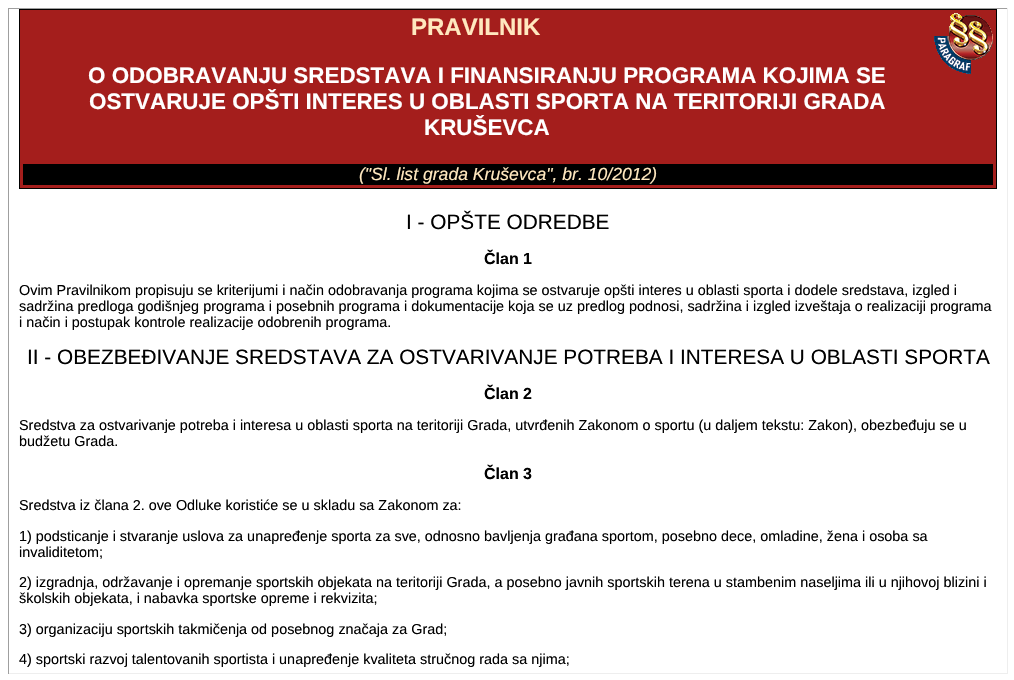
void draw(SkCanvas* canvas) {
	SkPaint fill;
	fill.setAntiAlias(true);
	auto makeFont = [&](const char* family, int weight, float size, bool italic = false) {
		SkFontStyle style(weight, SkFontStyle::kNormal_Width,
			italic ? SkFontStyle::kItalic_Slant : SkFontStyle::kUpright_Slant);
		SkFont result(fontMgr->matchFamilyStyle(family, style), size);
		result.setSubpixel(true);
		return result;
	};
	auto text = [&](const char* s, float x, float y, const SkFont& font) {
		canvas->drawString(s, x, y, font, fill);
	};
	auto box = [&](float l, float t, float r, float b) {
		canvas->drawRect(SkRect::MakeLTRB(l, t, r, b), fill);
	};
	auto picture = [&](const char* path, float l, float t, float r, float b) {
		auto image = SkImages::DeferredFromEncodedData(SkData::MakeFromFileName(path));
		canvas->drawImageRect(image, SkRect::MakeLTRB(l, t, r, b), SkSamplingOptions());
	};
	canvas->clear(0xFFFFFFFF);
	fill.setColor(0xFF9F9F9F);
	box(8, 8, 1008, 9);
	fill.setColor(0xFFEEEEEE);
	box(1007, 8, 1008, 674);
	box(8, 673, 1008, 674);
	fill.setColor(0xFF9F9F9F);
	box(8, 8, 9, 674);
	fill.setColor(0xFFA41E1C);
	box(20, 10, 996, 188);
	picture("image0.png", 934, 13, 993, 74);
	fill.setStyle(SkPaint::kStroke_Style);
	fill.setStrokeWidth(1);
	fill.setColor(0xFF000000);
	canvas->drawRect(SkRect::MakeLTRB(19.5f, 9.5f, 996.5f, 188.5f), fill);
	fill.setStyle(SkPaint::kFill_Style);
	box(23, 164, 993, 185);
	auto font1 = makeFont("Liberation Sans", 700, 24);
	fill.setColor(0xFFFFE8BF);
	text("PRAVILNIK", 411, 35, font1);
	auto font2 = makeFont("Liberation Sans", 700, 22.4f);
	fill.setColor(0xFFFFFFFF);
	text("O ODOBRAVANJU SREDSTAVA I FINANSIRANJU PROGRAMA KOJIMA SE", 88, 83, font2);
	text("OSTVARUJE OPŠTI INTERES U OBLASTI SPORTA NA TERITORIJI GRADA", 89, 109, font2);
	text("KRUŠEVCA", 424, 135, font2);
	auto font3 = makeFont("Liberation Sans", 400, 17.6f, true);
	fill.setColor(0xFFFFE8BF);
	text("(\"Sl. list grada Kruševca\", br. 10/2012)", 359, 180, font3);
	auto font4 = makeFont("Liberation Sans", 400, 20.8f);
	fill.setColor(0xFF000000);
	text("I - OPŠTE ODREDBE", 406, 229, font4);
	auto font5 = makeFont("Liberation Sans", 700, 16);
	text("Član 1", 484, 264, font5);
	auto font6 = makeFont("Liberation Sans", 400, 14.4f);
	text("Ovim Pravilnikom propisuju se kriterijumi i način odobravanja programa kojima se ostvaruje opšti interes u oblasti sporta i dodele sredstava, izgled i", 19, 295, font6);
	text("sadržina predloga godišnjeg programa i posebnih programa i dokumentacije koja se uz predlog podnosi, sadržina i izgled izveštaja o realizaciji programa", 19, 311, font6);
	text("i način i postupak kontrole realizacije odobrenih programa.", 19, 327, font6);
	text("II - OBEZBEĐIVANJE SREDSTAVA ZA OSTVARIVANJE POTREBA I INTERESA U OBLASTI SPORTA", 27, 364, font4);
	text("Član 2", 484, 399, font5);
	text("Sredstva za ostvarivanje potreba i interesa u oblasti sporta na teritoriji Grada, utvrđenih Zakonom o sportu (u daljem tekstu: Zakon), obezbeđuju se u", 19, 430, font6);
	text("budžetu Grada.", 19, 446, font6);
	text("Član 3", 484, 479, font5);
	text("Sredstva iz člana 2. ove Odluke koristiće se u skladu sa Zakonom za:", 19, 510, font6);
	text("1) podsticanje i stvaranje uslova za unapređenje sporta za sve, odnosno bavljenja građana sportom, posebno dece, omladine, žena i osoba sa", 19, 541, font6);
	text("invaliditetom;", 19, 557, font6);
	text("2) izgradnja, održavanje i opremanje sportskih objekata na teritoriji Grada, a posebno javnih sportskih terena u stambenim naseljima ili u njihovoj blizini i", 19, 587, font6);
	text("školskih objekata, i nabavka sportske opreme i rekvizita;", 19, 603, font6);
	text("3) organizaciju sportskih takmičenja od posebnog značaja za Grad;", 19, 634, font6);
	text("4) sportski razvoj talentovanih sportista i unapređenje kvaliteta stručnog rada sa njima;", 19, 664, font6);
}
